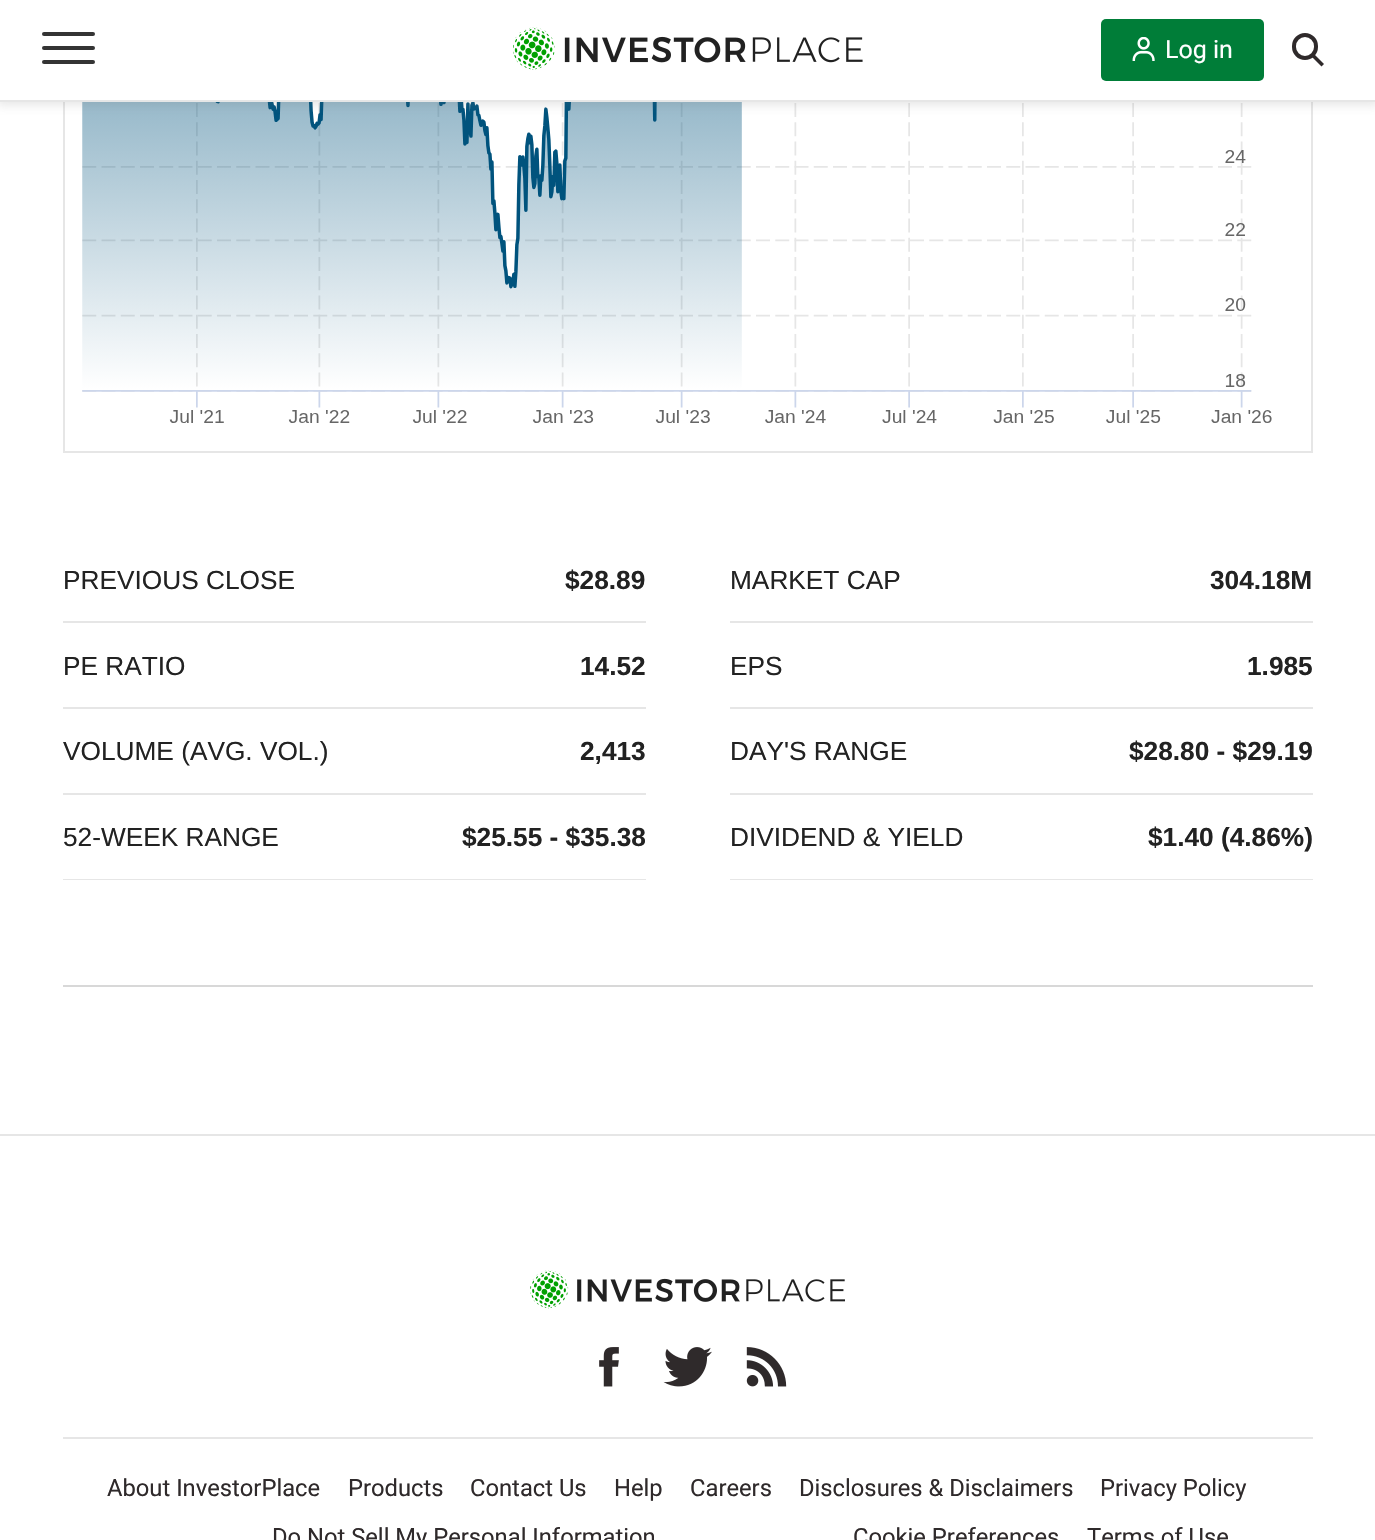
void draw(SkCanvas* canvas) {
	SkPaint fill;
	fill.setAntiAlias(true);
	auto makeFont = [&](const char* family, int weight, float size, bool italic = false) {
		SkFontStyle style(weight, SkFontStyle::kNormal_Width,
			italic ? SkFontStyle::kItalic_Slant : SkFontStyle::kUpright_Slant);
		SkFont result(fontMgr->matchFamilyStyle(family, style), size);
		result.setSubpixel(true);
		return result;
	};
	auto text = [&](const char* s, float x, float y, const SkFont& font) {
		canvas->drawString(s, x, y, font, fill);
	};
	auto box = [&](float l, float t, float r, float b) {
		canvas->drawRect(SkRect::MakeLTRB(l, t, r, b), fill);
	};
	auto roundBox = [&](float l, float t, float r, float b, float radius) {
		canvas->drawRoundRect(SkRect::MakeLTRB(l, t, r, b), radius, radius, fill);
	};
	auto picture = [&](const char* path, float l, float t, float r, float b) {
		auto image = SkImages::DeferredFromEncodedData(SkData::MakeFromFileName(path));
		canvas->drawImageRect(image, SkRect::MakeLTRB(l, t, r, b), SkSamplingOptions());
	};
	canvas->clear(0xFFFFFFFF);
	fill.setStyle(SkPaint::kStroke_Style);
	fill.setStrokeWidth(2);
	fill.setColor(0xFFE6E6E6);
	canvas->drawRect(SkRect::MakeLTRB(64, -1, 1312, 452), fill);
	picture("image2.png", 82, 102, 1284, 423);
	fill.setStyle(SkPaint::kFill_Style);
	fill.setColor(0x2E707070);
	fill.setMaskFilter(SkMaskFilter::MakeBlur(kNormal_SkBlurStyle, 5));
	canvas->drawRect(SkRect::MakeLTRB(-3, -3, 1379, 105), fill);
	fill.setMaskFilter(nullptr);
	fill.setColor(0xFFFFFFFF);
	box(0, 0, 1375, 100);
	fill.setColor(0xFFE6E6E6);
	box(0, 100, 1375, 102);
	fill.setColor(0xFF343434);
	roundBox(42, 46, 95, 50, 2);
	roundBox(42, 32, 95, 36, 2);
	roundBox(42, 60, 95, 64, 2);
	picture("image0.png", 513, 27, 863, 70);
	fill.setColor(0xFF007D38);
	roundBox(1101, 19, 1264, 81, 5);
	picture("image1.png", 1132, 37, 1155, 61);
	fill.setStyle(SkPaint::kStroke_Style);
	fill.setStrokeWidth(4);
	fill.setColor(0xFF2F2A2B);
	canvas->drawRoundRect(SkRect::MakeLTRB(1294, 35, 1316, 58), 11, 11, fill);
	fill.setStyle(SkPaint::kFill_Style);
	canvas->drawPath(SkPathBuilder().moveTo(1314, 54).lineTo(1324, 64).lineTo(1321.5f, 66.5f).lineTo(1311.5f, 56.5f).close().detach(), fill);
	fill.setColor(0xFFE6E6E6);
	box(63, 621, 646, 623);
	box(730, 621, 1313, 623);
	box(63, 707, 646, 709);
	box(730, 707, 1313, 709);
	box(63, 793, 646, 795);
	box(730, 793, 1313, 795);
	box(63, 879, 646, 880);
	box(730, 879, 1313, 880);
	fill.setColor(0xFFD8D8D8);
	box(63, 985, 1313, 987);
	fill.setColor(0xFFE6E6E6);
	box(0, 1134, 1375, 1136);
	picture("image3.png", 530, 1270, 845, 1309);
	picture("image4.png", 599, 1347, 619, 1387);
	picture("image5.png", 663, 1347, 712, 1387);
	picture("image6.png", 746, 1347, 787, 1387);
	box(63, 1437, 1313, 1439);
	auto font1 = makeFont("Roboto", 400, 25);
	fill.setColor(0xFFFFFFFF);
	text("Log in", 1165, 58, font1);
	auto font2 = makeFont("Liberation Sans", 400, 26.25f);
	fill.setColor(0xFF222222);
	text("PREVIOUS CLOSE", 63, 589, font2);
	auto font3 = makeFont("Liberation Sans", 700, 26.25f);
	text("$28.89", 565, 589, font3);
	text("MARKET CAP", 730, 589, font2);
	text("304.18M", 1210, 589, font3);
	text("PE RATIO", 63, 675, font2);
	text("14.52", 580, 675, font3);
	text("EPS", 730, 675, font2);
	text("1.985", 1247, 675, font3);
	text("VOLUME (AVG. VOL.)", 63, 760, font2);
	text("2,413", 580, 760, font3);
	text("DAY'S RANGE", 730, 760, font2);
	text("$28.80 - $29.19", 1129, 760, font3);
	text("52-WEEK RANGE", 63, 846, font2);
	text("$25.55 - $35.38", 462, 846, font3);
	text("DIVIDEND & YIELD", 730, 846, font2);
	text("$1.40 (4.86%)", 1148, 846, font3);
	auto font4 = makeFont("Roboto", 400, 23.75f);
	fill.setColor(0xFF2F2A2B);
	text("About InvestorPlace", 107, 1496, font4);
	text("Products", 348, 1496, font4);
	text("Contact Us", 470, 1496, font4);
	text("Help", 614, 1496, font4);
	text("Careers", 690, 1496, font4);
	text("Disclosures & Disclaimers", 799, 1496, font4);
	text("Privacy Policy", 1100, 1496, font4);
	text("Do Not Sell My Personal Information", 272, 1545, font4);
	text("Cookie Preferences", 853, 1545, font4);
	text("Terms of Use", 1087, 1545, font4);
}
